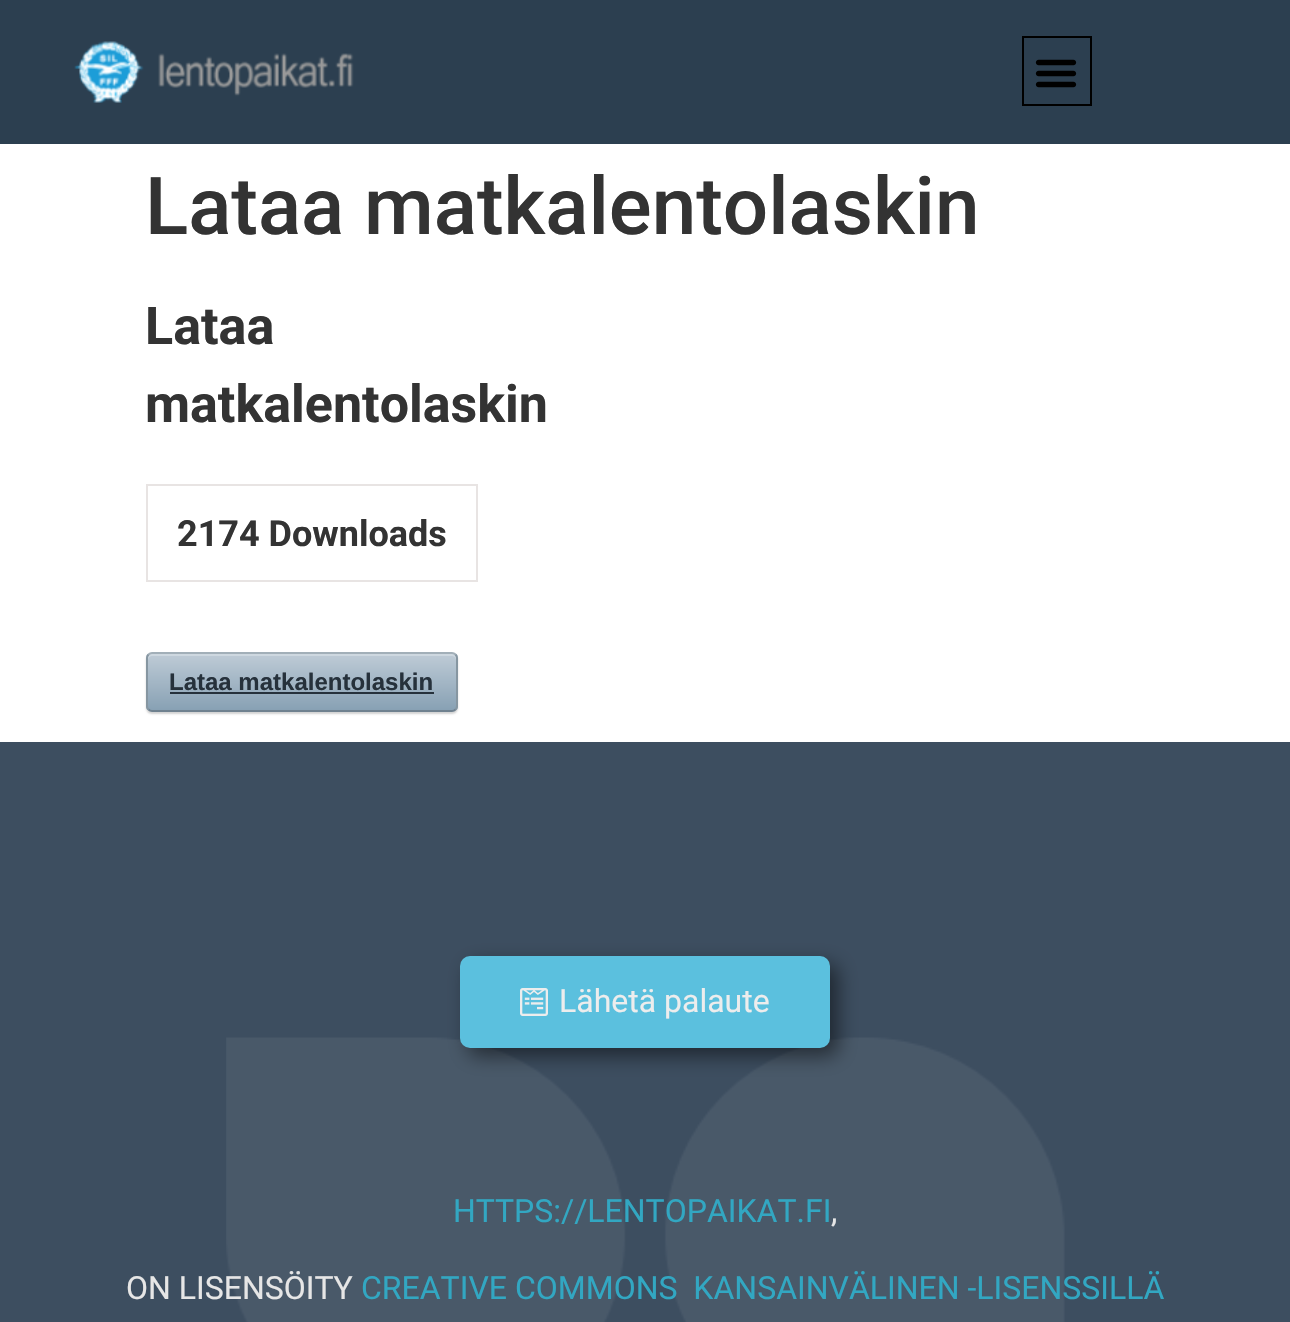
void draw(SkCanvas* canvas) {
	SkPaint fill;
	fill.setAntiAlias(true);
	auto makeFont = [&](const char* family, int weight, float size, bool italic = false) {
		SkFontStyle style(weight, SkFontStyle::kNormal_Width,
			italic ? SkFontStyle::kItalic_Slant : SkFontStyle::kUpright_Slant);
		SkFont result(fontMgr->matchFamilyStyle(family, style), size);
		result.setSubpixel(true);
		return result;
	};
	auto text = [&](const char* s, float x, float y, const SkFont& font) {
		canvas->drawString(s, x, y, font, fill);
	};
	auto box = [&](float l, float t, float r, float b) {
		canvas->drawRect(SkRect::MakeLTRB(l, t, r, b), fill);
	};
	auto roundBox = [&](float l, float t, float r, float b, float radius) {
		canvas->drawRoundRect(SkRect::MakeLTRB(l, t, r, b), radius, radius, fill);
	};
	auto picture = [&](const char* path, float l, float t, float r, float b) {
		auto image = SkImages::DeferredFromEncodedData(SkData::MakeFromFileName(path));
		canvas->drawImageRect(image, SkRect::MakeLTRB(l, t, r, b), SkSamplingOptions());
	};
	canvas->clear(0xFFFFFFFF);
	fill.setColor(0xFF2C3F50);
	box(0, 0, 1290, 144);
	picture("image0.png", 74, 41, 354, 103);
	fill.setStyle(SkPaint::kStroke_Style);
	fill.setStrokeWidth(2);
	fill.setColor(0xFF000000);
	canvas->drawRect(SkRect::MakeLTRB(1023, 37, 1091, 105), fill);
	picture("image1.png", 1035, 59, 1077, 88);
	fill.setColor(0xFFE8E4E3);
	canvas->drawRect(SkRect::MakeLTRB(147, 485, 477, 581), fill);
	fill.setStyle(SkPaint::kFill_Style);
	fill.setColor(0xFFD3D3D3);
	fill.setMaskFilter(SkMaskFilter::MakeBlur(kNormal_SkBlurStyle, 1));
	canvas->drawRoundRect(SkRect::MakeLTRB(146, 654, 458, 714), 6, 6, fill);
	fill.setMaskFilter(nullptr);
	canvas->save();
	canvas->clipPath(SkPathBuilder().moveTo(152, 652).lineTo(452, 652).cubicTo(455.5f, 652, 458, 654.5f, 458, 658).lineTo(458, 706).cubicTo(458, 709.5f, 455.5f, 712, 452, 712).lineTo(152, 712).cubicTo(148.5f, 712, 146, 709.5f, 146, 706).lineTo(146, 658).cubicTo(146, 654.5f, 148.5f, 652, 152, 652).close().detach(), true);
	{
		const SkColor colors[] = {0xFFBECBD6, 0xFF88A1B4};
		const float stops[] = {0, 1};
		const SkPoint ends[] = {{148, 654}, {148, 710}};
		fill.setShader(SkGradientShader::MakeLinear(ends, colors, stops, 2, SkTileMode::kClamp));
		fill.setAlpha(255);
	}
	box(146, 654, 458, 710);
	canvas->restore();
	fill.setShader(nullptr);
	fill.setColor(0xFFCED8E0);
	canvas->drawPath(SkPathBuilder().moveTo(152, 656).lineTo(452, 656).cubicTo(454, 656, 456, 658, 456, 660).lineTo(456, 658).cubicTo(456, 656, 454, 654, 452, 654).lineTo(152, 654).cubicTo(150, 654, 148, 656, 148, 658).lineTo(148, 660).cubicTo(148, 658, 150, 656, 152, 656).close().detach(), fill);
	fill.setStyle(SkPaint::kStroke_Style);
	fill.setColor(0xFFA2AFB8);
	canvas->drawPath(SkPathBuilder().moveTo(148.5f, 654.5f).cubicTo(149.5f, 653.5f, 150.5f, 653, 152, 653).lineTo(452, 653).cubicTo(453.5f, 653, 454.5f, 653.5f, 455.5f, 654.5f).detach(), fill);
	fill.setColor(0xFF8696A1);
	canvas->drawPath(SkPathBuilder().moveTo(455.5f, 654.5f).cubicTo(456.5f, 655.5f, 457, 656.5f, 457, 658).lineTo(457, 706).cubicTo(457, 707.5f, 456.5f, 708.5f, 455.5f, 709.5f).detach(), fill);
	fill.setColor(0xFF6F818F);
	canvas->drawPath(SkPathBuilder().moveTo(455.5f, 709.5f).cubicTo(454.5f, 710.5f, 453.5f, 711, 452, 711).lineTo(152, 711).cubicTo(150.5f, 711, 149.5f, 710.5f, 148.5f, 709.5f).detach(), fill);
	fill.setColor(0xFF8696A1);
	canvas->drawPath(SkPathBuilder().moveTo(148.5f, 709.5f).cubicTo(147.5f, 708.5f, 147, 707.5f, 147, 706).lineTo(147, 658).cubicTo(147, 656.5f, 147.5f, 655.5f, 148.5f, 654.5f).detach(), fill);
	fill.setStyle(SkPaint::kFill_Style);
	fill.setColor(0xFF26313B);
	box(170, 692, 434, 694);
	fill.setColor(0xFF3D4E60);
	box(0, 742, 1290, 1322);
	picture("image3.png", 226, 1037, 1065, 1322);
	fill.setColor(0x80000000);
	fill.setMaskFilter(SkMaskFilter::MakeBlur(kNormal_SkBlurStyle, 10));
	canvas->drawRoundRect(SkRect::MakeLTRB(468, 964, 838, 1056), 10, 10, fill);
	fill.setMaskFilter(nullptr);
	fill.setColor(0xFF5BC0DE);
	roundBox(460, 956, 830, 1048, 10);
	picture("image2.png", 520, 988, 548, 1016);
	auto font1 = makeFont("Roboto", 500, 80);
	fill.setColor(0xFF333333);
	text("Lataa matkalentolaskin", 145, 234, font1);
	auto font2 = makeFont("Roboto", 700, 52);
	text("Lataa", 145, 344, font2);
	text("matkalentolaskin", 145, 422, font2);
	auto font3 = makeFont("Roboto", 700, 36);
	text("2174 Downloads", 177, 546, font3);
	auto font4 = makeFont("Liberation Sans", 700, 24);
	fill.setColor(0xFF26313B);
	text("Lataa matkalentolaskin", 169, 690, font4);
	auto font5 = makeFont("Roboto", 400, 32);
	fill.setColor(0xFFEDEDED);
	text("Lähetä palaute", 559, 1012, font5);
	fill.setColor(0xFF32A7C2);
	text("HTTPS://LENTOPAIKAT.FI", 453, 1222, font5);
	fill.setColor(0xFFE6E6E6);
	text(",", 831, 1222, font5);
	text("ON LISENSÖITY", 126, 1299, font5);
	fill.setColor(0xFF32A7C2);
	text("CREATIVE COMMONS  KANSAINVÄLINEN -LISENSSILLÄ", 361, 1299, font5);
}
